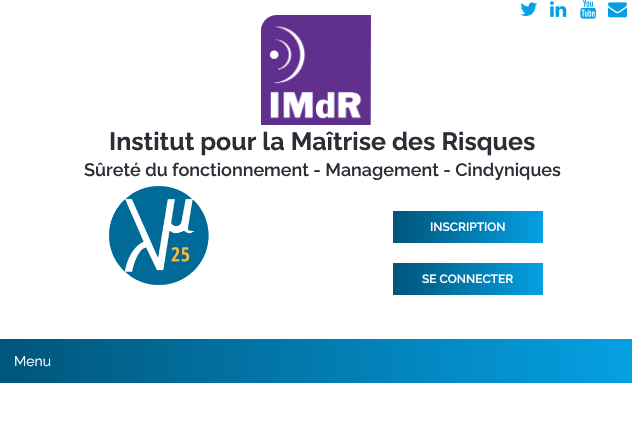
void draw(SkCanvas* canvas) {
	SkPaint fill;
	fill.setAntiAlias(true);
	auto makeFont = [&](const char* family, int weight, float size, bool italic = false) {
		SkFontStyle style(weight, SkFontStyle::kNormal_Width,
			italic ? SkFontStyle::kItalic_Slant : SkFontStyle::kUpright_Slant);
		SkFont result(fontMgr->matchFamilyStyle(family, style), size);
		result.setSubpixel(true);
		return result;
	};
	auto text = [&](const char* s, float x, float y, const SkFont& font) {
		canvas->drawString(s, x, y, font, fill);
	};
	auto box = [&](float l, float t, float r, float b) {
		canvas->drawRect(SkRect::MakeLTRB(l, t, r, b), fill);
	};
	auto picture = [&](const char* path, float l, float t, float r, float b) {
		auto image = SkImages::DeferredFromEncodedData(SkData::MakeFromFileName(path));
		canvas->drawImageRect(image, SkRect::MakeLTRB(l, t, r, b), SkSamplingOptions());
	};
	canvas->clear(0xFFFFFFFF);
	picture("image0.png", 520, 2, 537, 16);
	picture("image1.png", 550, 1, 567, 17);
	picture("image2.png", 580, 0, 596, 19);
	picture("image3.png", 608, 2, 627, 18);
	picture("image4.png", 261, 15, 371, 125);
	picture("image5.png", 109, 186, 209, 285);
	{
		const SkColor colors[] = {0xFF00557A, 0xFF05A0E3};
		const float stops[] = {0, 1};
		const SkPoint ends[] = {{393, 227}, {543, 227}};
		fill.setShader(SkGradientShader::MakeLinear(ends, colors, stops, 2, SkTileMode::kClamp));
		fill.setAlpha(255);
	}
	box(393, 211, 543, 243);
	{
		const SkColor colors[] = {0xFF00557A, 0xFF05A0E3};
		const float stops[] = {0, 1};
		const SkPoint ends[] = {{393, 279}, {543, 279}};
		fill.setShader(SkGradientShader::MakeLinear(ends, colors, stops, 2, SkTileMode::kClamp));
		fill.setAlpha(255);
	}
	box(393, 263, 543, 295);
	{
		const SkColor colors[] = {0xFF00557A, 0xFF05A0E3};
		const float stops[] = {0, 1};
		const SkPoint ends[] = {{0, 361}, {632, 361}};
		fill.setShader(SkGradientShader::MakeLinear(ends, colors, stops, 2, SkTileMode::kClamp));
		fill.setAlpha(255);
	}
	box(0, 339, 632, 383);
	auto font1 = makeFont("Raleway", 700, 25);
	fill.setShader(nullptr);
	fill.setColor(0xFF2D2D38);
	text("Institut pour la Maîtrise des Risques", 109, 150, font1);
	auto font2 = makeFont("Raleway", 600, 18);
	text("Sûreté du fonctionnement - Management - Cindyniques", 84, 176, font2);
	auto font3 = makeFont("Raleway", 600, 12);
	fill.setColor(0xFFFFFFFF);
	text("INSCRIPTION", 430, 231, font3);
	text("SE CONNECTER", 422, 283, font3);
	auto font4 = makeFont("Raleway", 400, 14);
	text("Menu", 14, 366, font4);
}
